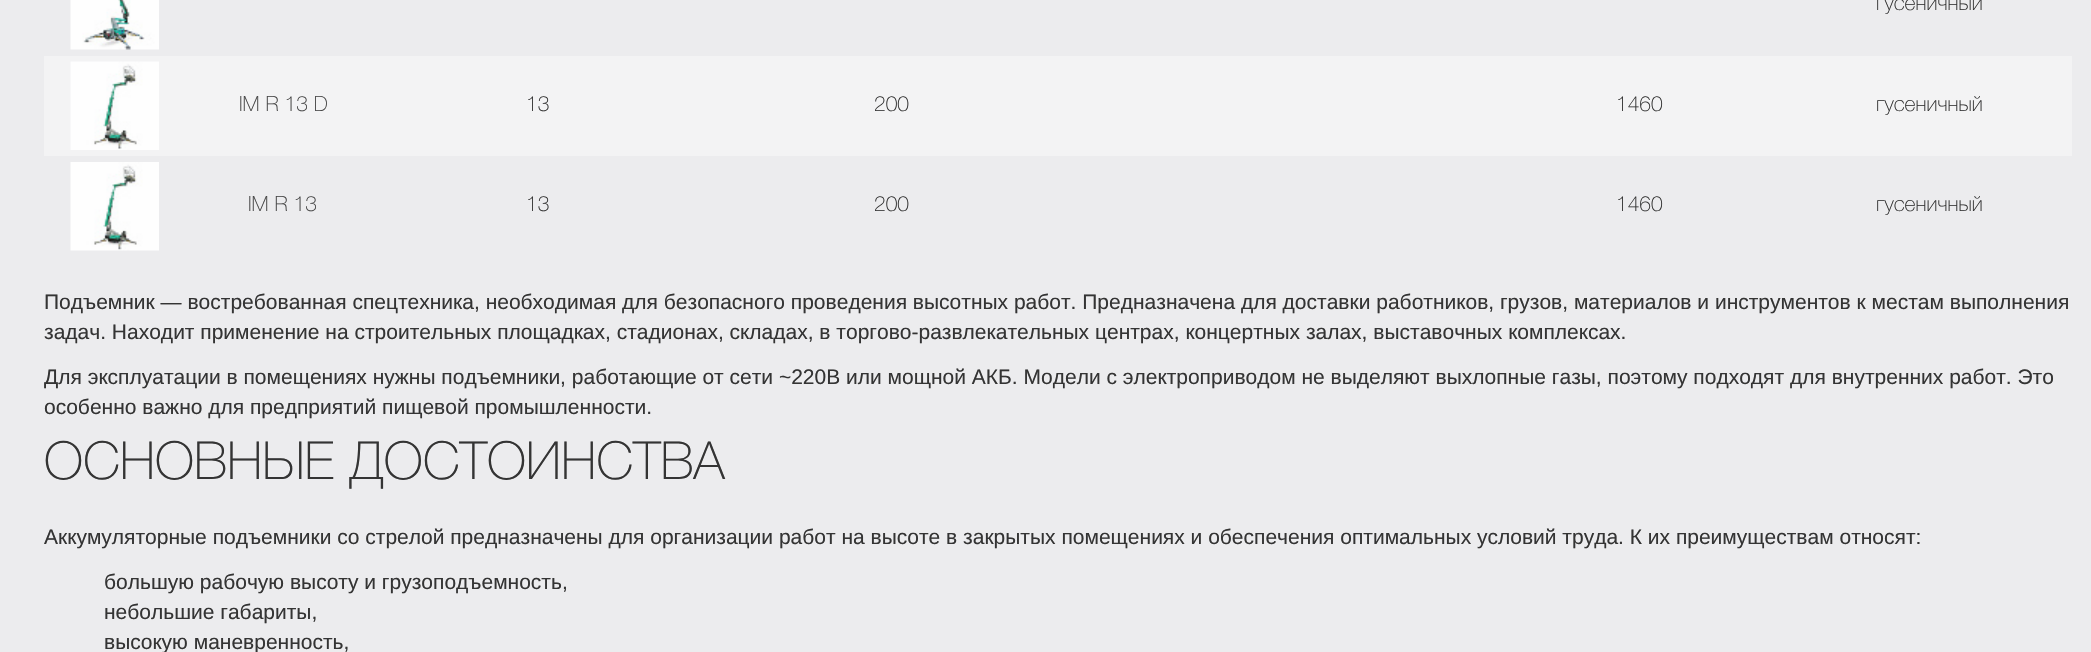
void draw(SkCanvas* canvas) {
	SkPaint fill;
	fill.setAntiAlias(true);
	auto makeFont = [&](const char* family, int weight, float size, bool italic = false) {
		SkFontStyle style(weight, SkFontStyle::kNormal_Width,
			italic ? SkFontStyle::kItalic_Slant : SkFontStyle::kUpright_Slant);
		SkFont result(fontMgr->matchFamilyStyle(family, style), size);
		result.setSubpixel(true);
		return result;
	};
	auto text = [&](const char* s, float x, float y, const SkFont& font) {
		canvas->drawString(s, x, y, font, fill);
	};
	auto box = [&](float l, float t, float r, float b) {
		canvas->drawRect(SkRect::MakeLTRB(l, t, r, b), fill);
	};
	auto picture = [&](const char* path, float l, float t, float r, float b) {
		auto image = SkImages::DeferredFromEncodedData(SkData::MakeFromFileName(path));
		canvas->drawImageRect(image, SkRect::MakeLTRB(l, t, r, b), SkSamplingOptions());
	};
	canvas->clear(0xFFECECEE);
	picture("image0.png", 70, 0, 159, 50);
	fill.setColor(0xFFF3F3F4);
	box(44, 56, 2072, 156);
	picture("image1.png", 70, 61, 159, 150);
	picture("image2.png", 70, 162, 159, 251);
	auto font1 = makeFont("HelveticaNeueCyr", 100, 21);
	fill.setColor(0xFF343434);
	text("гусеничный", 1876, 10, font1);
	fill.setColor(0xFF474747);
	text("IM R 13 D", 239, 111, font1);
	fill.setColor(0xFF343434);
	text("13", 526, 111, font1);
	text("200", 874, 111, font1);
	text("1460", 1616, 111, font1);
	text("гусеничный", 1876, 111, font1);
	fill.setColor(0xFF474747);
	text("IM R 13", 248, 211, font1);
	fill.setColor(0xFF343434);
	text("13", 526, 211, font1);
	text("200", 874, 211, font1);
	text("1460", 1616, 211, font1);
	text("гусеничный", 1876, 211, font1);
	auto font2 = makeFont("Liberation Sans", 400, 21);
	text("Подъемник — востребованная спецтехника, необходимая для безопасного проведения высотных работ. Предназначена для доставки работников, грузов, материалов и инструментов к местам выполнения", 44, 309, font2);
	text("задач. Находит применение на строительных площадках, стадионах, складах, в торгово-развлекательных центрах, концертных залах, выставочных комплексах.", 44, 339, font2);
	text("Для эксплуатации в помещениях нужны подъемники, работающие от сети ~220В или мощной АКБ. Модели с электроприводом не выделяют выхлопные газы, поэтому подходят для внутренних работ. Это", 44, 384, font2);
	text("особенно важно для предприятий пищевой промышленности.", 44, 414, font2);
	auto font3 = makeFont("HelveticaNeueCyr", 100, 52.5f);
	text("ОСНОВНЫЕ ДОСТОИНСТВА", 44, 479, font3);
	text("Аккумуляторные подъемники со стрелой предназначены для организации работ на высоте в закрытых помещениях и обеспечения оптимальных условий труда. К их преимуществам относят:", 44, 544, font2);
	text("большую рабочую высоту и грузоподъемность,", 104, 589, font2);
	text("небольшие габариты,", 104, 619, font2);
	text("высокую маневренность,", 104, 649, font2);
}
